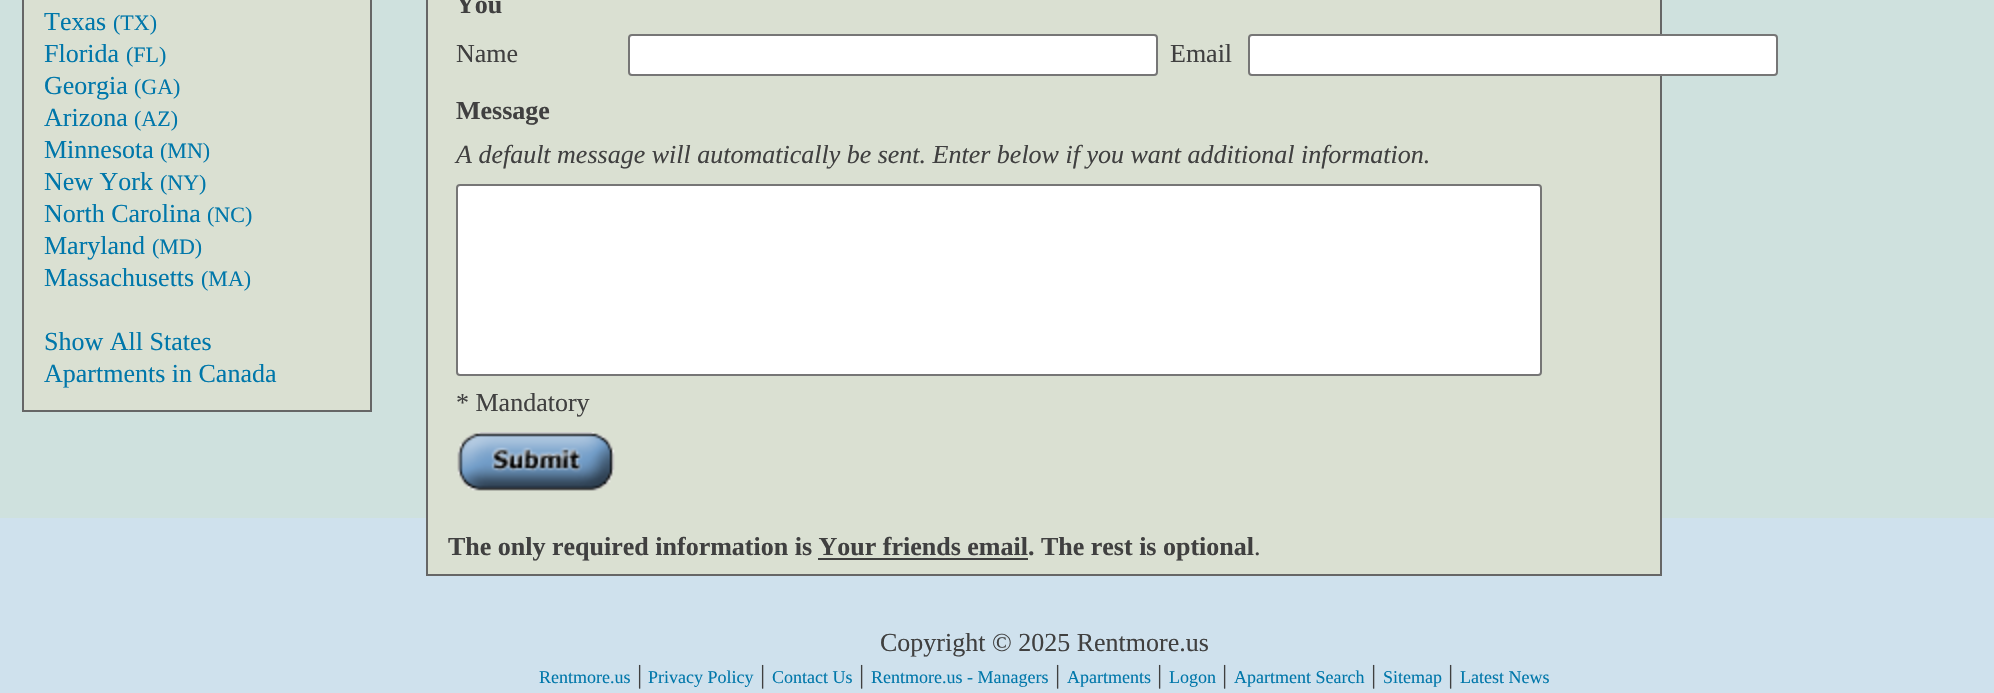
void draw(SkCanvas* canvas) {
	SkPaint fill;
	fill.setAntiAlias(true);
	auto makeFont = [&](const char* family, int weight, float size, bool italic = false) {
		SkFontStyle style(weight, SkFontStyle::kNormal_Width,
			italic ? SkFontStyle::kItalic_Slant : SkFontStyle::kUpright_Slant);
		SkFont result(fontMgr->matchFamilyStyle(family, style), size);
		result.setSubpixel(true);
		return result;
	};
	auto text = [&](const char* s, float x, float y, const SkFont& font) {
		canvas->drawString(s, x, y, font, fill);
	};
	auto box = [&](float l, float t, float r, float b) {
		canvas->drawRect(SkRect::MakeLTRB(l, t, r, b), fill);
	};
	auto picture = [&](const char* path, float l, float t, float r, float b) {
		auto image = SkImages::DeferredFromEncodedData(SkData::MakeFromFileName(path));
		canvas->drawImageRect(image, SkRect::MakeLTRB(l, t, r, b), SkSamplingOptions());
	};
	canvas->clear(0xFFCFE1ED);
	fill.setColor(0xFFCFE1DE);
	box(0, 0, 1994, 518);
	fill.setColor(0xFFDAE0D2);
	canvas->drawRect(SkRect::MakeLTRB(23, -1, 371, 411), fill);
	fill.setStyle(SkPaint::kStroke_Style);
	fill.setStrokeWidth(2);
	fill.setColor(0xFF666666);
	canvas->drawRect(SkRect::MakeLTRB(23, -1, 371, 411), fill);
	fill.setStyle(SkPaint::kFill_Style);
	fill.setColor(0xFFDAE0D2);
	canvas->drawRect(SkRect::MakeLTRB(427, -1, 1661, 575), fill);
	fill.setStyle(SkPaint::kStroke_Style);
	fill.setColor(0xFF666666);
	canvas->drawRect(SkRect::MakeLTRB(427, -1, 1661, 575), fill);
	fill.setStyle(SkPaint::kFill_Style);
	fill.setColor(0xFFFFFFFF);
	canvas->drawRoundRect(SkRect::MakeLTRB(629, 35, 1157, 75), 3, 3, fill);
	fill.setStyle(SkPaint::kStroke_Style);
	fill.setColor(0xFF767676);
	canvas->drawRoundRect(SkRect::MakeLTRB(629, 35, 1157, 75), 3, 3, fill);
	fill.setStyle(SkPaint::kFill_Style);
	fill.setColor(0xFFFFFFFF);
	canvas->drawRoundRect(SkRect::MakeLTRB(1249, 35, 1777, 75), 3, 3, fill);
	fill.setStyle(SkPaint::kStroke_Style);
	fill.setColor(0xFF767676);
	canvas->drawRoundRect(SkRect::MakeLTRB(1249, 35, 1777, 75), 3, 3, fill);
	fill.setStyle(SkPaint::kFill_Style);
	fill.setColor(0xFFFFFFFF);
	canvas->drawRoundRect(SkRect::MakeLTRB(457, 185, 1541, 375), 3, 3, fill);
	fill.setStyle(SkPaint::kStroke_Style);
	fill.setColor(0xFF767676);
	canvas->drawRoundRect(SkRect::MakeLTRB(457, 185, 1541, 375), 3, 3, fill);
	picture("image0.png", 457, 432, 615, 491);
	fill.setStyle(SkPaint::kFill_Style);
	fill.setColor(0xFF404040);
	box(818, 558, 1028, 560);
	auto font1 = makeFont("Liberation Serif", 400, 26);
	fill.setColor(0xFF0077AA);
	text("Texas", 44, 30, font1);
	auto font2 = makeFont("Liberation Serif", 400, 22);
	text("(TX)", 113, 30, font2);
	text("Florida", 44, 62, font1);
	text("(FL)", 126, 62, font2);
	text("Georgia", 44, 94, font1);
	text("(GA)", 134, 94, font2);
	text("Arizona", 44, 126, font1);
	text("(AZ)", 134, 126, font2);
	text("Minnesota", 44, 158, font1);
	text("(MN)", 160, 158, font2);
	text("New York", 44, 190, font1);
	text("(NY)", 160, 190, font2);
	text("North Carolina", 44, 222, font1);
	text("(NC)", 207, 222, font2);
	text("Maryland", 44, 254, font1);
	text("(MD)", 152, 254, font2);
	text("Massachusetts", 44, 286, font1);
	text("(MA)", 201, 286, font2);
	text("Show All States", 44, 350, font1);
	text("Apartments in Canada", 44, 382, font1);
	auto font3 = makeFont("Liberation Serif", 700, 26);
	fill.setColor(0xFF404040);
	text("You", 456, 13, font3);
	text("Name", 456, 62, font1);
	text("Email", 1170, 62, font1);
	text("Message", 456, 119, font3);
	auto font4 = makeFont("Liberation Serif", 400, 26, true);
	text("A default message will automatically be sent. Enter below if you want additional information.", 456, 163, font4);
	text("* Mandatory", 456, 411, font1);
	text("The only required information is Your friends email. The rest is optional", 448, 555, font3);
	text(".", 1254, 555, font1);
	text("Copyright © 2025 Rentmore.us", 880, 651, font1);
	auto font5 = makeFont("Liberation Serif", 400, 18);
	fill.setColor(0xFF0077AA);
	text("Rentmore.us", 539, 683, font5);
	fill.setColor(0xFF404040);
	text("|", 637, 683, font1);
	fill.setColor(0xFF0077AA);
	text("Privacy Policy", 648, 683, font5);
	fill.setColor(0xFF404040);
	text("|", 760, 683, font1);
	fill.setColor(0xFF0077AA);
	text("Contact Us", 772, 683, font5);
	fill.setColor(0xFF404040);
	text("|", 859, 683, font1);
	fill.setColor(0xFF0077AA);
	text("Rentmore.us - Managers", 871, 683, font5);
	fill.setColor(0xFF404040);
	text("|", 1055, 683, font1);
	fill.setColor(0xFF0077AA);
	text("Apartments", 1067, 683, font5);
	fill.setColor(0xFF404040);
	text("|", 1157, 683, font1);
	fill.setColor(0xFF0077AA);
	text("Logon", 1169, 683, font5);
	fill.setColor(0xFF404040);
	text("|", 1222, 683, font1);
	fill.setColor(0xFF0077AA);
	text("Apartment Search", 1234, 683, font5);
	fill.setColor(0xFF404040);
	text("|", 1371, 683, font1);
	fill.setColor(0xFF0077AA);
	text("Sitemap", 1383, 683, font5);
	fill.setColor(0xFF404040);
	text("|", 1448, 683, font1);
	fill.setColor(0xFF0077AA);
	text("Latest News", 1460, 683, font5);
}
